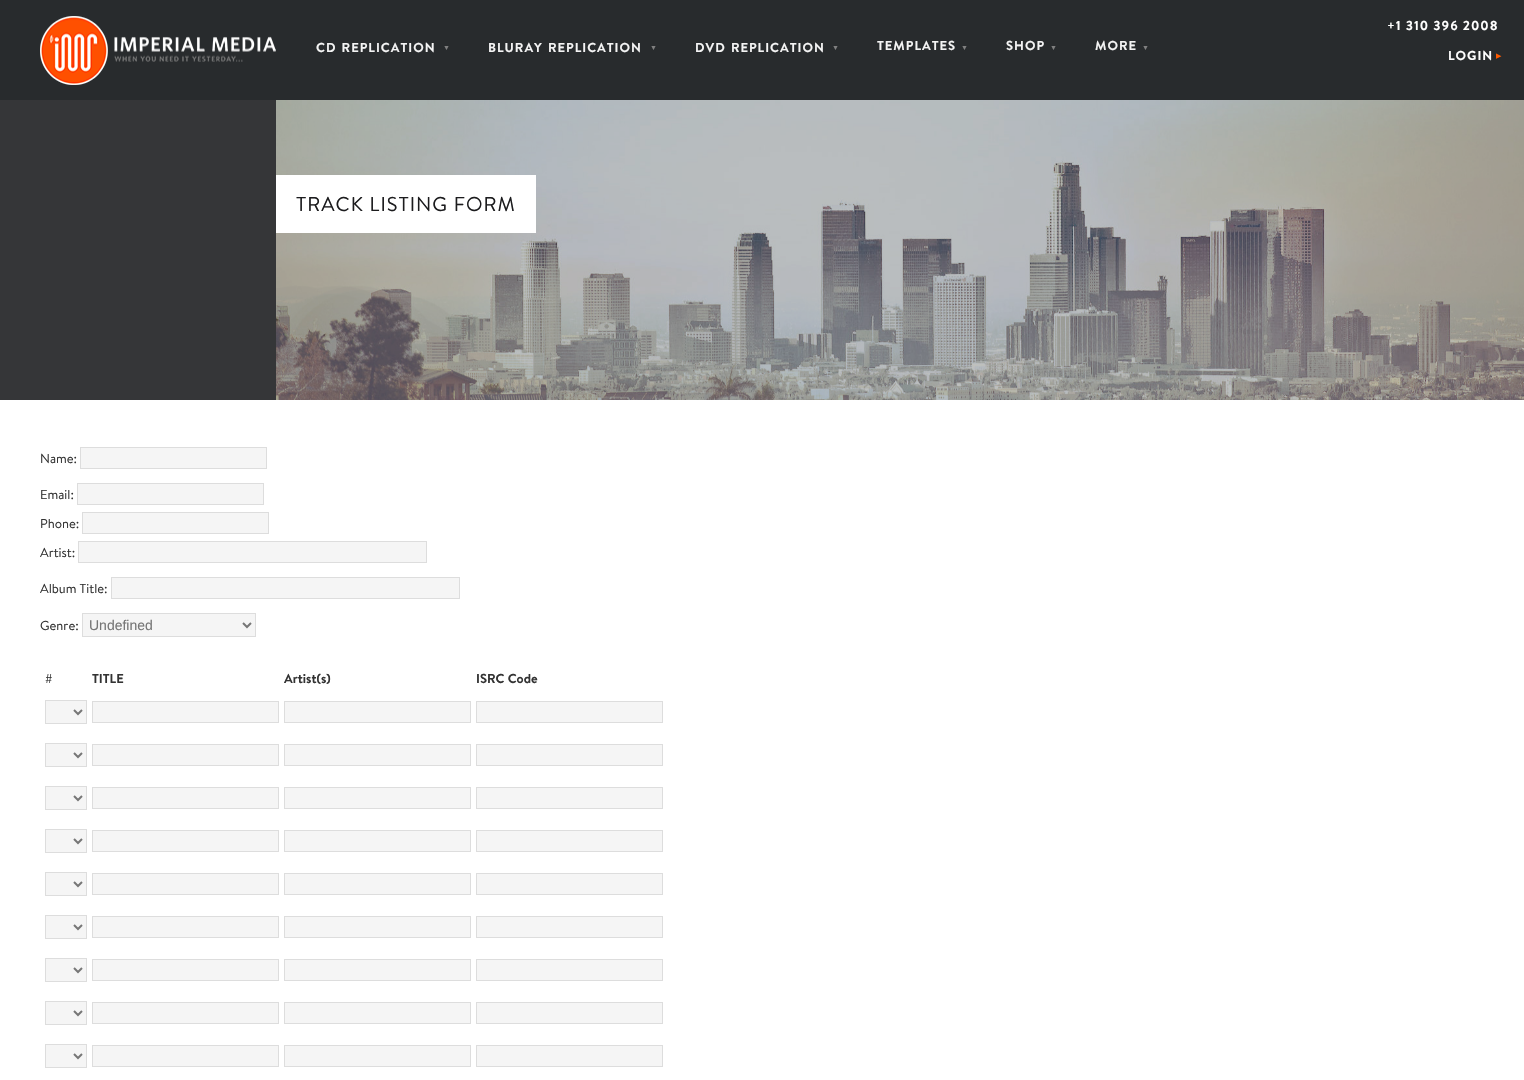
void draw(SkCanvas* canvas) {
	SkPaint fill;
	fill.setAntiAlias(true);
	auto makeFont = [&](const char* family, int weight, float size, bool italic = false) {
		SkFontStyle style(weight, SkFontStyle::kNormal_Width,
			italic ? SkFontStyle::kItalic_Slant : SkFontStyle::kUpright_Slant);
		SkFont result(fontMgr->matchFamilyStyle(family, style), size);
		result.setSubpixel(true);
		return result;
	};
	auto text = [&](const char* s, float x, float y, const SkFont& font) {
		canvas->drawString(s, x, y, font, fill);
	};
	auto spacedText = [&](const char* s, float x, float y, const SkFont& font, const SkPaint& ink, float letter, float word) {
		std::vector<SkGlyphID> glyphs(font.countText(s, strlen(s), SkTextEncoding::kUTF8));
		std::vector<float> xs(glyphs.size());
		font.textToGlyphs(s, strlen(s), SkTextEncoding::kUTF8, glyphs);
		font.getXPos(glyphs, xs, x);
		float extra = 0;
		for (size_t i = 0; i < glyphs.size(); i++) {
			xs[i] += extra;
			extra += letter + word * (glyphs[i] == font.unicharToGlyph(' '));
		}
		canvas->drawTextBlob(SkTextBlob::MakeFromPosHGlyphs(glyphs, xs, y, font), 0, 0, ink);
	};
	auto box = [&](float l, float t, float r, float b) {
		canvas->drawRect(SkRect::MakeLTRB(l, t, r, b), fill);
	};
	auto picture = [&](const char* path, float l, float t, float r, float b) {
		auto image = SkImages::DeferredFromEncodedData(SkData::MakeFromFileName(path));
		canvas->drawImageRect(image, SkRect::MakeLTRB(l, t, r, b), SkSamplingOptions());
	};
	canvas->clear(0xFF353638);
	fill.setColor(0xFF282B2D);
	box(0, 0, 1524, 100);
	picture("image0.png", 40, 16, 276, 85);
	picture("image1.png", 276, 100, 1524, 400);
	fill.setColor(0xFFFFFFFF);
	box(276, 175, 536, 233);
	box(0, 400, 1524, 1080);
	fill.setColor(0xFFF5F5F5);
	canvas->drawRect(SkRect::MakeLTRB(80.5f, 447.5f, 266.5f, 468.5f), fill);
	fill.setStyle(SkPaint::kStroke_Style);
	fill.setStrokeWidth(1);
	fill.setColor(0xFFDDDDDD);
	canvas->drawRect(SkRect::MakeLTRB(80.5f, 447.5f, 266.5f, 468.5f), fill);
	fill.setStyle(SkPaint::kFill_Style);
	fill.setColor(0xFFF5F5F5);
	canvas->drawRect(SkRect::MakeLTRB(77.5f, 483.5f, 263.5f, 504.5f), fill);
	fill.setStyle(SkPaint::kStroke_Style);
	fill.setColor(0xFFDDDDDD);
	canvas->drawRect(SkRect::MakeLTRB(77.5f, 483.5f, 263.5f, 504.5f), fill);
	fill.setStyle(SkPaint::kFill_Style);
	fill.setColor(0xFFF5F5F5);
	canvas->drawRect(SkRect::MakeLTRB(82.5f, 512.5f, 268.5f, 533.5f), fill);
	fill.setStyle(SkPaint::kStroke_Style);
	fill.setColor(0xFFDDDDDD);
	canvas->drawRect(SkRect::MakeLTRB(82.5f, 512.5f, 268.5f, 533.5f), fill);
	fill.setStyle(SkPaint::kFill_Style);
	fill.setColor(0xFFF5F5F5);
	canvas->drawRect(SkRect::MakeLTRB(78.5f, 541.5f, 426.5f, 562.5f), fill);
	fill.setStyle(SkPaint::kStroke_Style);
	fill.setColor(0xFFDDDDDD);
	canvas->drawRect(SkRect::MakeLTRB(78.5f, 541.5f, 426.5f, 562.5f), fill);
	fill.setStyle(SkPaint::kFill_Style);
	fill.setColor(0xFFF5F5F5);
	canvas->drawRect(SkRect::MakeLTRB(111.5f, 577.5f, 459.5f, 598.5f), fill);
	fill.setStyle(SkPaint::kStroke_Style);
	fill.setColor(0xFFDDDDDD);
	canvas->drawRect(SkRect::MakeLTRB(111.5f, 577.5f, 459.5f, 598.5f), fill);
	fill.setStyle(SkPaint::kFill_Style);
	fill.setColor(0xFFF5F5F5);
	canvas->drawRect(SkRect::MakeLTRB(82.5f, 613.5f, 255.5f, 636.5f), fill);
	fill.setStyle(SkPaint::kStroke_Style);
	fill.setColor(0xFFDDDDDD);
	canvas->drawRect(SkRect::MakeLTRB(82.5f, 613.5f, 255.5f, 636.5f), fill);
	fill.setStrokeWidth(2);
	fill.setColor(0xFF777777);
	canvas->drawPath(SkPathBuilder().moveTo(243, 623).lineTo(247, 627).lineTo(251, 623).detach(), fill);
	fill.setStyle(SkPaint::kFill_Style);
	fill.setColor(0xFFF5F5F5);
	canvas->drawRect(SkRect::MakeLTRB(45.5f, 700.5f, 86.5f, 723.5f), fill);
	fill.setStyle(SkPaint::kStroke_Style);
	fill.setStrokeWidth(1);
	fill.setColor(0xFFDDDDDD);
	canvas->drawRect(SkRect::MakeLTRB(45.5f, 700.5f, 86.5f, 723.5f), fill);
	fill.setStrokeWidth(2);
	fill.setColor(0xFF777777);
	canvas->drawPath(SkPathBuilder().moveTo(74, 710).lineTo(78, 714).lineTo(82, 710).detach(), fill);
	fill.setStyle(SkPaint::kFill_Style);
	fill.setColor(0xFFF5F5F5);
	canvas->drawRect(SkRect::MakeLTRB(92.5f, 701.5f, 278.5f, 722.5f), fill);
	fill.setStyle(SkPaint::kStroke_Style);
	fill.setStrokeWidth(1);
	fill.setColor(0xFFDDDDDD);
	canvas->drawRect(SkRect::MakeLTRB(92.5f, 701.5f, 278.5f, 722.5f), fill);
	fill.setStyle(SkPaint::kFill_Style);
	fill.setColor(0xFFF5F5F5);
	canvas->drawRect(SkRect::MakeLTRB(284.5f, 701.5f, 470.5f, 722.5f), fill);
	fill.setStyle(SkPaint::kStroke_Style);
	fill.setColor(0xFFDDDDDD);
	canvas->drawRect(SkRect::MakeLTRB(284.5f, 701.5f, 470.5f, 722.5f), fill);
	fill.setStyle(SkPaint::kFill_Style);
	fill.setColor(0xFFF5F5F5);
	canvas->drawRect(SkRect::MakeLTRB(476.5f, 701.5f, 662.5f, 722.5f), fill);
	fill.setStyle(SkPaint::kStroke_Style);
	fill.setColor(0xFFDDDDDD);
	canvas->drawRect(SkRect::MakeLTRB(476.5f, 701.5f, 662.5f, 722.5f), fill);
	fill.setStyle(SkPaint::kFill_Style);
	fill.setColor(0xFFF5F5F5);
	canvas->drawRect(SkRect::MakeLTRB(45.5f, 743.5f, 86.5f, 766.5f), fill);
	fill.setStyle(SkPaint::kStroke_Style);
	fill.setColor(0xFFDDDDDD);
	canvas->drawRect(SkRect::MakeLTRB(45.5f, 743.5f, 86.5f, 766.5f), fill);
	fill.setStrokeWidth(2);
	fill.setColor(0xFF777777);
	canvas->drawPath(SkPathBuilder().moveTo(74, 753).lineTo(78, 757).lineTo(82, 753).detach(), fill);
	fill.setStyle(SkPaint::kFill_Style);
	fill.setColor(0xFFF5F5F5);
	canvas->drawRect(SkRect::MakeLTRB(92.5f, 744.5f, 278.5f, 765.5f), fill);
	fill.setStyle(SkPaint::kStroke_Style);
	fill.setStrokeWidth(1);
	fill.setColor(0xFFDDDDDD);
	canvas->drawRect(SkRect::MakeLTRB(92.5f, 744.5f, 278.5f, 765.5f), fill);
	fill.setStyle(SkPaint::kFill_Style);
	fill.setColor(0xFFF5F5F5);
	canvas->drawRect(SkRect::MakeLTRB(284.5f, 744.5f, 470.5f, 765.5f), fill);
	fill.setStyle(SkPaint::kStroke_Style);
	fill.setColor(0xFFDDDDDD);
	canvas->drawRect(SkRect::MakeLTRB(284.5f, 744.5f, 470.5f, 765.5f), fill);
	fill.setStyle(SkPaint::kFill_Style);
	fill.setColor(0xFFF5F5F5);
	canvas->drawRect(SkRect::MakeLTRB(476.5f, 744.5f, 662.5f, 765.5f), fill);
	fill.setStyle(SkPaint::kStroke_Style);
	fill.setColor(0xFFDDDDDD);
	canvas->drawRect(SkRect::MakeLTRB(476.5f, 744.5f, 662.5f, 765.5f), fill);
	fill.setStyle(SkPaint::kFill_Style);
	fill.setColor(0xFFF5F5F5);
	canvas->drawRect(SkRect::MakeLTRB(45.5f, 786.5f, 86.5f, 809.5f), fill);
	fill.setStyle(SkPaint::kStroke_Style);
	fill.setColor(0xFFDDDDDD);
	canvas->drawRect(SkRect::MakeLTRB(45.5f, 786.5f, 86.5f, 809.5f), fill);
	fill.setStrokeWidth(2);
	fill.setColor(0xFF777777);
	canvas->drawPath(SkPathBuilder().moveTo(74, 796).lineTo(78, 800).lineTo(82, 796).detach(), fill);
	fill.setStyle(SkPaint::kFill_Style);
	fill.setColor(0xFFF5F5F5);
	canvas->drawRect(SkRect::MakeLTRB(92.5f, 787.5f, 278.5f, 808.5f), fill);
	fill.setStyle(SkPaint::kStroke_Style);
	fill.setStrokeWidth(1);
	fill.setColor(0xFFDDDDDD);
	canvas->drawRect(SkRect::MakeLTRB(92.5f, 787.5f, 278.5f, 808.5f), fill);
	fill.setStyle(SkPaint::kFill_Style);
	fill.setColor(0xFFF5F5F5);
	canvas->drawRect(SkRect::MakeLTRB(284.5f, 787.5f, 470.5f, 808.5f), fill);
	fill.setStyle(SkPaint::kStroke_Style);
	fill.setColor(0xFFDDDDDD);
	canvas->drawRect(SkRect::MakeLTRB(284.5f, 787.5f, 470.5f, 808.5f), fill);
	fill.setStyle(SkPaint::kFill_Style);
	fill.setColor(0xFFF5F5F5);
	canvas->drawRect(SkRect::MakeLTRB(476.5f, 787.5f, 662.5f, 808.5f), fill);
	fill.setStyle(SkPaint::kStroke_Style);
	fill.setColor(0xFFDDDDDD);
	canvas->drawRect(SkRect::MakeLTRB(476.5f, 787.5f, 662.5f, 808.5f), fill);
	fill.setStyle(SkPaint::kFill_Style);
	fill.setColor(0xFFF5F5F5);
	canvas->drawRect(SkRect::MakeLTRB(45.5f, 829.5f, 86.5f, 852.5f), fill);
	fill.setStyle(SkPaint::kStroke_Style);
	fill.setColor(0xFFDDDDDD);
	canvas->drawRect(SkRect::MakeLTRB(45.5f, 829.5f, 86.5f, 852.5f), fill);
	fill.setStrokeWidth(2);
	fill.setColor(0xFF777777);
	canvas->drawPath(SkPathBuilder().moveTo(74, 839).lineTo(78, 843).lineTo(82, 839).detach(), fill);
	fill.setStyle(SkPaint::kFill_Style);
	fill.setColor(0xFFF5F5F5);
	canvas->drawRect(SkRect::MakeLTRB(92.5f, 830.5f, 278.5f, 851.5f), fill);
	fill.setStyle(SkPaint::kStroke_Style);
	fill.setStrokeWidth(1);
	fill.setColor(0xFFDDDDDD);
	canvas->drawRect(SkRect::MakeLTRB(92.5f, 830.5f, 278.5f, 851.5f), fill);
	fill.setStyle(SkPaint::kFill_Style);
	fill.setColor(0xFFF5F5F5);
	canvas->drawRect(SkRect::MakeLTRB(284.5f, 830.5f, 470.5f, 851.5f), fill);
	fill.setStyle(SkPaint::kStroke_Style);
	fill.setColor(0xFFDDDDDD);
	canvas->drawRect(SkRect::MakeLTRB(284.5f, 830.5f, 470.5f, 851.5f), fill);
	fill.setStyle(SkPaint::kFill_Style);
	fill.setColor(0xFFF5F5F5);
	canvas->drawRect(SkRect::MakeLTRB(476.5f, 830.5f, 662.5f, 851.5f), fill);
	fill.setStyle(SkPaint::kStroke_Style);
	fill.setColor(0xFFDDDDDD);
	canvas->drawRect(SkRect::MakeLTRB(476.5f, 830.5f, 662.5f, 851.5f), fill);
	fill.setStyle(SkPaint::kFill_Style);
	fill.setColor(0xFFF5F5F5);
	canvas->drawRect(SkRect::MakeLTRB(45.5f, 872.5f, 86.5f, 895.5f), fill);
	fill.setStyle(SkPaint::kStroke_Style);
	fill.setColor(0xFFDDDDDD);
	canvas->drawRect(SkRect::MakeLTRB(45.5f, 872.5f, 86.5f, 895.5f), fill);
	fill.setStrokeWidth(2);
	fill.setColor(0xFF777777);
	canvas->drawPath(SkPathBuilder().moveTo(74, 882).lineTo(78, 886).lineTo(82, 882).detach(), fill);
	fill.setStyle(SkPaint::kFill_Style);
	fill.setColor(0xFFF5F5F5);
	canvas->drawRect(SkRect::MakeLTRB(92.5f, 873.5f, 278.5f, 894.5f), fill);
	fill.setStyle(SkPaint::kStroke_Style);
	fill.setStrokeWidth(1);
	fill.setColor(0xFFDDDDDD);
	canvas->drawRect(SkRect::MakeLTRB(92.5f, 873.5f, 278.5f, 894.5f), fill);
	fill.setStyle(SkPaint::kFill_Style);
	fill.setColor(0xFFF5F5F5);
	canvas->drawRect(SkRect::MakeLTRB(284.5f, 873.5f, 470.5f, 894.5f), fill);
	fill.setStyle(SkPaint::kStroke_Style);
	fill.setColor(0xFFDDDDDD);
	canvas->drawRect(SkRect::MakeLTRB(284.5f, 873.5f, 470.5f, 894.5f), fill);
	fill.setStyle(SkPaint::kFill_Style);
	fill.setColor(0xFFF5F5F5);
	canvas->drawRect(SkRect::MakeLTRB(476.5f, 873.5f, 662.5f, 894.5f), fill);
	fill.setStyle(SkPaint::kStroke_Style);
	fill.setColor(0xFFDDDDDD);
	canvas->drawRect(SkRect::MakeLTRB(476.5f, 873.5f, 662.5f, 894.5f), fill);
	fill.setStyle(SkPaint::kFill_Style);
	fill.setColor(0xFFF5F5F5);
	canvas->drawRect(SkRect::MakeLTRB(45.5f, 915.5f, 86.5f, 938.5f), fill);
	fill.setStyle(SkPaint::kStroke_Style);
	fill.setColor(0xFFDDDDDD);
	canvas->drawRect(SkRect::MakeLTRB(45.5f, 915.5f, 86.5f, 938.5f), fill);
	fill.setStrokeWidth(2);
	fill.setColor(0xFF777777);
	canvas->drawPath(SkPathBuilder().moveTo(74, 925).lineTo(78, 929).lineTo(82, 925).detach(), fill);
	fill.setStyle(SkPaint::kFill_Style);
	fill.setColor(0xFFF5F5F5);
	canvas->drawRect(SkRect::MakeLTRB(92.5f, 916.5f, 278.5f, 937.5f), fill);
	fill.setStyle(SkPaint::kStroke_Style);
	fill.setStrokeWidth(1);
	fill.setColor(0xFFDDDDDD);
	canvas->drawRect(SkRect::MakeLTRB(92.5f, 916.5f, 278.5f, 937.5f), fill);
	fill.setStyle(SkPaint::kFill_Style);
	fill.setColor(0xFFF5F5F5);
	canvas->drawRect(SkRect::MakeLTRB(284.5f, 916.5f, 470.5f, 937.5f), fill);
	fill.setStyle(SkPaint::kStroke_Style);
	fill.setColor(0xFFDDDDDD);
	canvas->drawRect(SkRect::MakeLTRB(284.5f, 916.5f, 470.5f, 937.5f), fill);
	fill.setStyle(SkPaint::kFill_Style);
	fill.setColor(0xFFF5F5F5);
	canvas->drawRect(SkRect::MakeLTRB(476.5f, 916.5f, 662.5f, 937.5f), fill);
	fill.setStyle(SkPaint::kStroke_Style);
	fill.setColor(0xFFDDDDDD);
	canvas->drawRect(SkRect::MakeLTRB(476.5f, 916.5f, 662.5f, 937.5f), fill);
	fill.setStyle(SkPaint::kFill_Style);
	fill.setColor(0xFFF5F5F5);
	canvas->drawRect(SkRect::MakeLTRB(45.5f, 958.5f, 86.5f, 981.5f), fill);
	fill.setStyle(SkPaint::kStroke_Style);
	fill.setColor(0xFFDDDDDD);
	canvas->drawRect(SkRect::MakeLTRB(45.5f, 958.5f, 86.5f, 981.5f), fill);
	fill.setStrokeWidth(2);
	fill.setColor(0xFF777777);
	canvas->drawPath(SkPathBuilder().moveTo(74, 968).lineTo(78, 972).lineTo(82, 968).detach(), fill);
	fill.setStyle(SkPaint::kFill_Style);
	fill.setColor(0xFFF5F5F5);
	canvas->drawRect(SkRect::MakeLTRB(92.5f, 959.5f, 278.5f, 980.5f), fill);
	fill.setStyle(SkPaint::kStroke_Style);
	fill.setStrokeWidth(1);
	fill.setColor(0xFFDDDDDD);
	canvas->drawRect(SkRect::MakeLTRB(92.5f, 959.5f, 278.5f, 980.5f), fill);
	fill.setStyle(SkPaint::kFill_Style);
	fill.setColor(0xFFF5F5F5);
	canvas->drawRect(SkRect::MakeLTRB(284.5f, 959.5f, 470.5f, 980.5f), fill);
	fill.setStyle(SkPaint::kStroke_Style);
	fill.setColor(0xFFDDDDDD);
	canvas->drawRect(SkRect::MakeLTRB(284.5f, 959.5f, 470.5f, 980.5f), fill);
	fill.setStyle(SkPaint::kFill_Style);
	fill.setColor(0xFFF5F5F5);
	canvas->drawRect(SkRect::MakeLTRB(476.5f, 959.5f, 662.5f, 980.5f), fill);
	fill.setStyle(SkPaint::kStroke_Style);
	fill.setColor(0xFFDDDDDD);
	canvas->drawRect(SkRect::MakeLTRB(476.5f, 959.5f, 662.5f, 980.5f), fill);
	fill.setStyle(SkPaint::kFill_Style);
	fill.setColor(0xFFF5F5F5);
	canvas->drawRect(SkRect::MakeLTRB(45.5f, 1001.5f, 86.5f, 1024.5f), fill);
	fill.setStyle(SkPaint::kStroke_Style);
	fill.setColor(0xFFDDDDDD);
	canvas->drawRect(SkRect::MakeLTRB(45.5f, 1001.5f, 86.5f, 1024.5f), fill);
	fill.setStrokeWidth(2);
	fill.setColor(0xFF777777);
	canvas->drawPath(SkPathBuilder().moveTo(74, 1011).lineTo(78, 1015).lineTo(82, 1011).detach(), fill);
	fill.setStyle(SkPaint::kFill_Style);
	fill.setColor(0xFFF5F5F5);
	canvas->drawRect(SkRect::MakeLTRB(92.5f, 1002.5f, 278.5f, 1023.5f), fill);
	fill.setStyle(SkPaint::kStroke_Style);
	fill.setStrokeWidth(1);
	fill.setColor(0xFFDDDDDD);
	canvas->drawRect(SkRect::MakeLTRB(92.5f, 1002.5f, 278.5f, 1023.5f), fill);
	fill.setStyle(SkPaint::kFill_Style);
	fill.setColor(0xFFF5F5F5);
	canvas->drawRect(SkRect::MakeLTRB(284.5f, 1002.5f, 470.5f, 1023.5f), fill);
	fill.setStyle(SkPaint::kStroke_Style);
	fill.setColor(0xFFDDDDDD);
	canvas->drawRect(SkRect::MakeLTRB(284.5f, 1002.5f, 470.5f, 1023.5f), fill);
	fill.setStyle(SkPaint::kFill_Style);
	fill.setColor(0xFFF5F5F5);
	canvas->drawRect(SkRect::MakeLTRB(476.5f, 1002.5f, 662.5f, 1023.5f), fill);
	fill.setStyle(SkPaint::kStroke_Style);
	fill.setColor(0xFFDDDDDD);
	canvas->drawRect(SkRect::MakeLTRB(476.5f, 1002.5f, 662.5f, 1023.5f), fill);
	fill.setStyle(SkPaint::kFill_Style);
	fill.setColor(0xFFF5F5F5);
	canvas->drawRect(SkRect::MakeLTRB(45.5f, 1044.5f, 86.5f, 1067.5f), fill);
	fill.setStyle(SkPaint::kStroke_Style);
	fill.setColor(0xFFDDDDDD);
	canvas->drawRect(SkRect::MakeLTRB(45.5f, 1044.5f, 86.5f, 1067.5f), fill);
	fill.setStrokeWidth(2);
	fill.setColor(0xFF777777);
	canvas->drawPath(SkPathBuilder().moveTo(74, 1054).lineTo(78, 1058).lineTo(82, 1054).detach(), fill);
	fill.setStyle(SkPaint::kFill_Style);
	fill.setColor(0xFFF5F5F5);
	canvas->drawRect(SkRect::MakeLTRB(92.5f, 1045.5f, 278.5f, 1066.5f), fill);
	fill.setStyle(SkPaint::kStroke_Style);
	fill.setStrokeWidth(1);
	fill.setColor(0xFFDDDDDD);
	canvas->drawRect(SkRect::MakeLTRB(92.5f, 1045.5f, 278.5f, 1066.5f), fill);
	fill.setStyle(SkPaint::kFill_Style);
	fill.setColor(0xFFF5F5F5);
	canvas->drawRect(SkRect::MakeLTRB(284.5f, 1045.5f, 470.5f, 1066.5f), fill);
	fill.setStyle(SkPaint::kStroke_Style);
	fill.setColor(0xFFDDDDDD);
	canvas->drawRect(SkRect::MakeLTRB(284.5f, 1045.5f, 470.5f, 1066.5f), fill);
	fill.setStyle(SkPaint::kFill_Style);
	fill.setColor(0xFFF5F5F5);
	canvas->drawRect(SkRect::MakeLTRB(476.5f, 1045.5f, 662.5f, 1066.5f), fill);
	fill.setStyle(SkPaint::kStroke_Style);
	fill.setColor(0xFFDDDDDD);
	canvas->drawRect(SkRect::MakeLTRB(476.5f, 1045.5f, 662.5f, 1066.5f), fill);
	auto font1 = makeFont("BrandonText", 700, 13);
	fill.setStyle(SkPaint::kFill_Style);
	fill.setColor(0xFFF4F4F4);
	spacedText("CD REPLICATION", 316, 52, font1, fill, 1, 1);
	auto font2 = makeFont("Liberation Sans", 400, 7);
	fill.setColor(0xFF808080);
	spacedText("▼", 443, 50, font2, fill, 1, 0);
	fill.setColor(0xFFF4F4F4);
	spacedText("BLURAY REPLICATION", 488, 52, font1, fill, 1, 1);
	fill.setColor(0xFF808080);
	spacedText("▼", 650, 50, font2, fill, 1, 0);
	fill.setColor(0xFFF4F4F4);
	spacedText("DVD REPLICATION", 695, 52, font1, fill, 1, 1);
	fill.setColor(0xFF808080);
	spacedText("▼", 832, 50, font2, fill, 1, 0);
	fill.setColor(0xFFF4F4F4);
	spacedText("TEMPLATES", 877, 50, font1, fill, 1, 0);
	fill.setColor(0xFF808080);
	spacedText("▼", 961, 50, font2, fill, 1, 0);
	fill.setColor(0xFFF4F4F4);
	spacedText("SHOP", 1006, 50, font1, fill, 1, 0);
	fill.setColor(0xFF808080);
	spacedText("▼", 1050, 50, font2, fill, 1, 0);
	fill.setColor(0xFFF4F4F4);
	spacedText("MORE", 1095, 50, font1, fill, 1, 0);
	fill.setColor(0xFF808080);
	spacedText("▼", 1142, 50, font2, fill, 1, 0);
	fill.setColor(0xFFFFFFFF);
	spacedText("+1 310 396 2008", 1387, 30, font1, fill, 1, 0);
	spacedText("LOGIN", 1448, 60, font1, fill, 1, 0);
	auto font3 = makeFont("DejaVu Sans", 400, 7);
	fill.setColor(0xFFFF5A00);
	spacedText("▶", 1496, 58, font3, fill, 1, 0);
	auto font4 = makeFont("BrandonText", 400, 20);
	fill.setColor(0xFF1C1C1E);
	spacedText("TRACK LISTING FORM", 296, 211, font4, fill, 1, 0);
	auto font5 = makeFont("BrandonText", 400, 13);
	fill.setColor(0xFF333333);
	text("Name:", 40, 463, font5);
	text("Email:", 40, 499, font5);
	text("Phone:", 40, 528, font5);
	text("Artist:", 40, 557, font5);
	text("Album Title:", 40, 593, font5);
	text("Genre:", 40, 630, font5);
	auto font6 = makeFont("Liberation Sans", 400, 14);
	fill.setColor(0xFF777777);
	text("Undefined", 89, 630, font6);
	fill.setColor(0xFF333333);
	text("#", 45, 683, font1);
	text("TITLE", 92, 683, font1);
	text("Artist(s)", 284, 683, font1);
	text("ISRC Code", 476, 683, font1);
}
